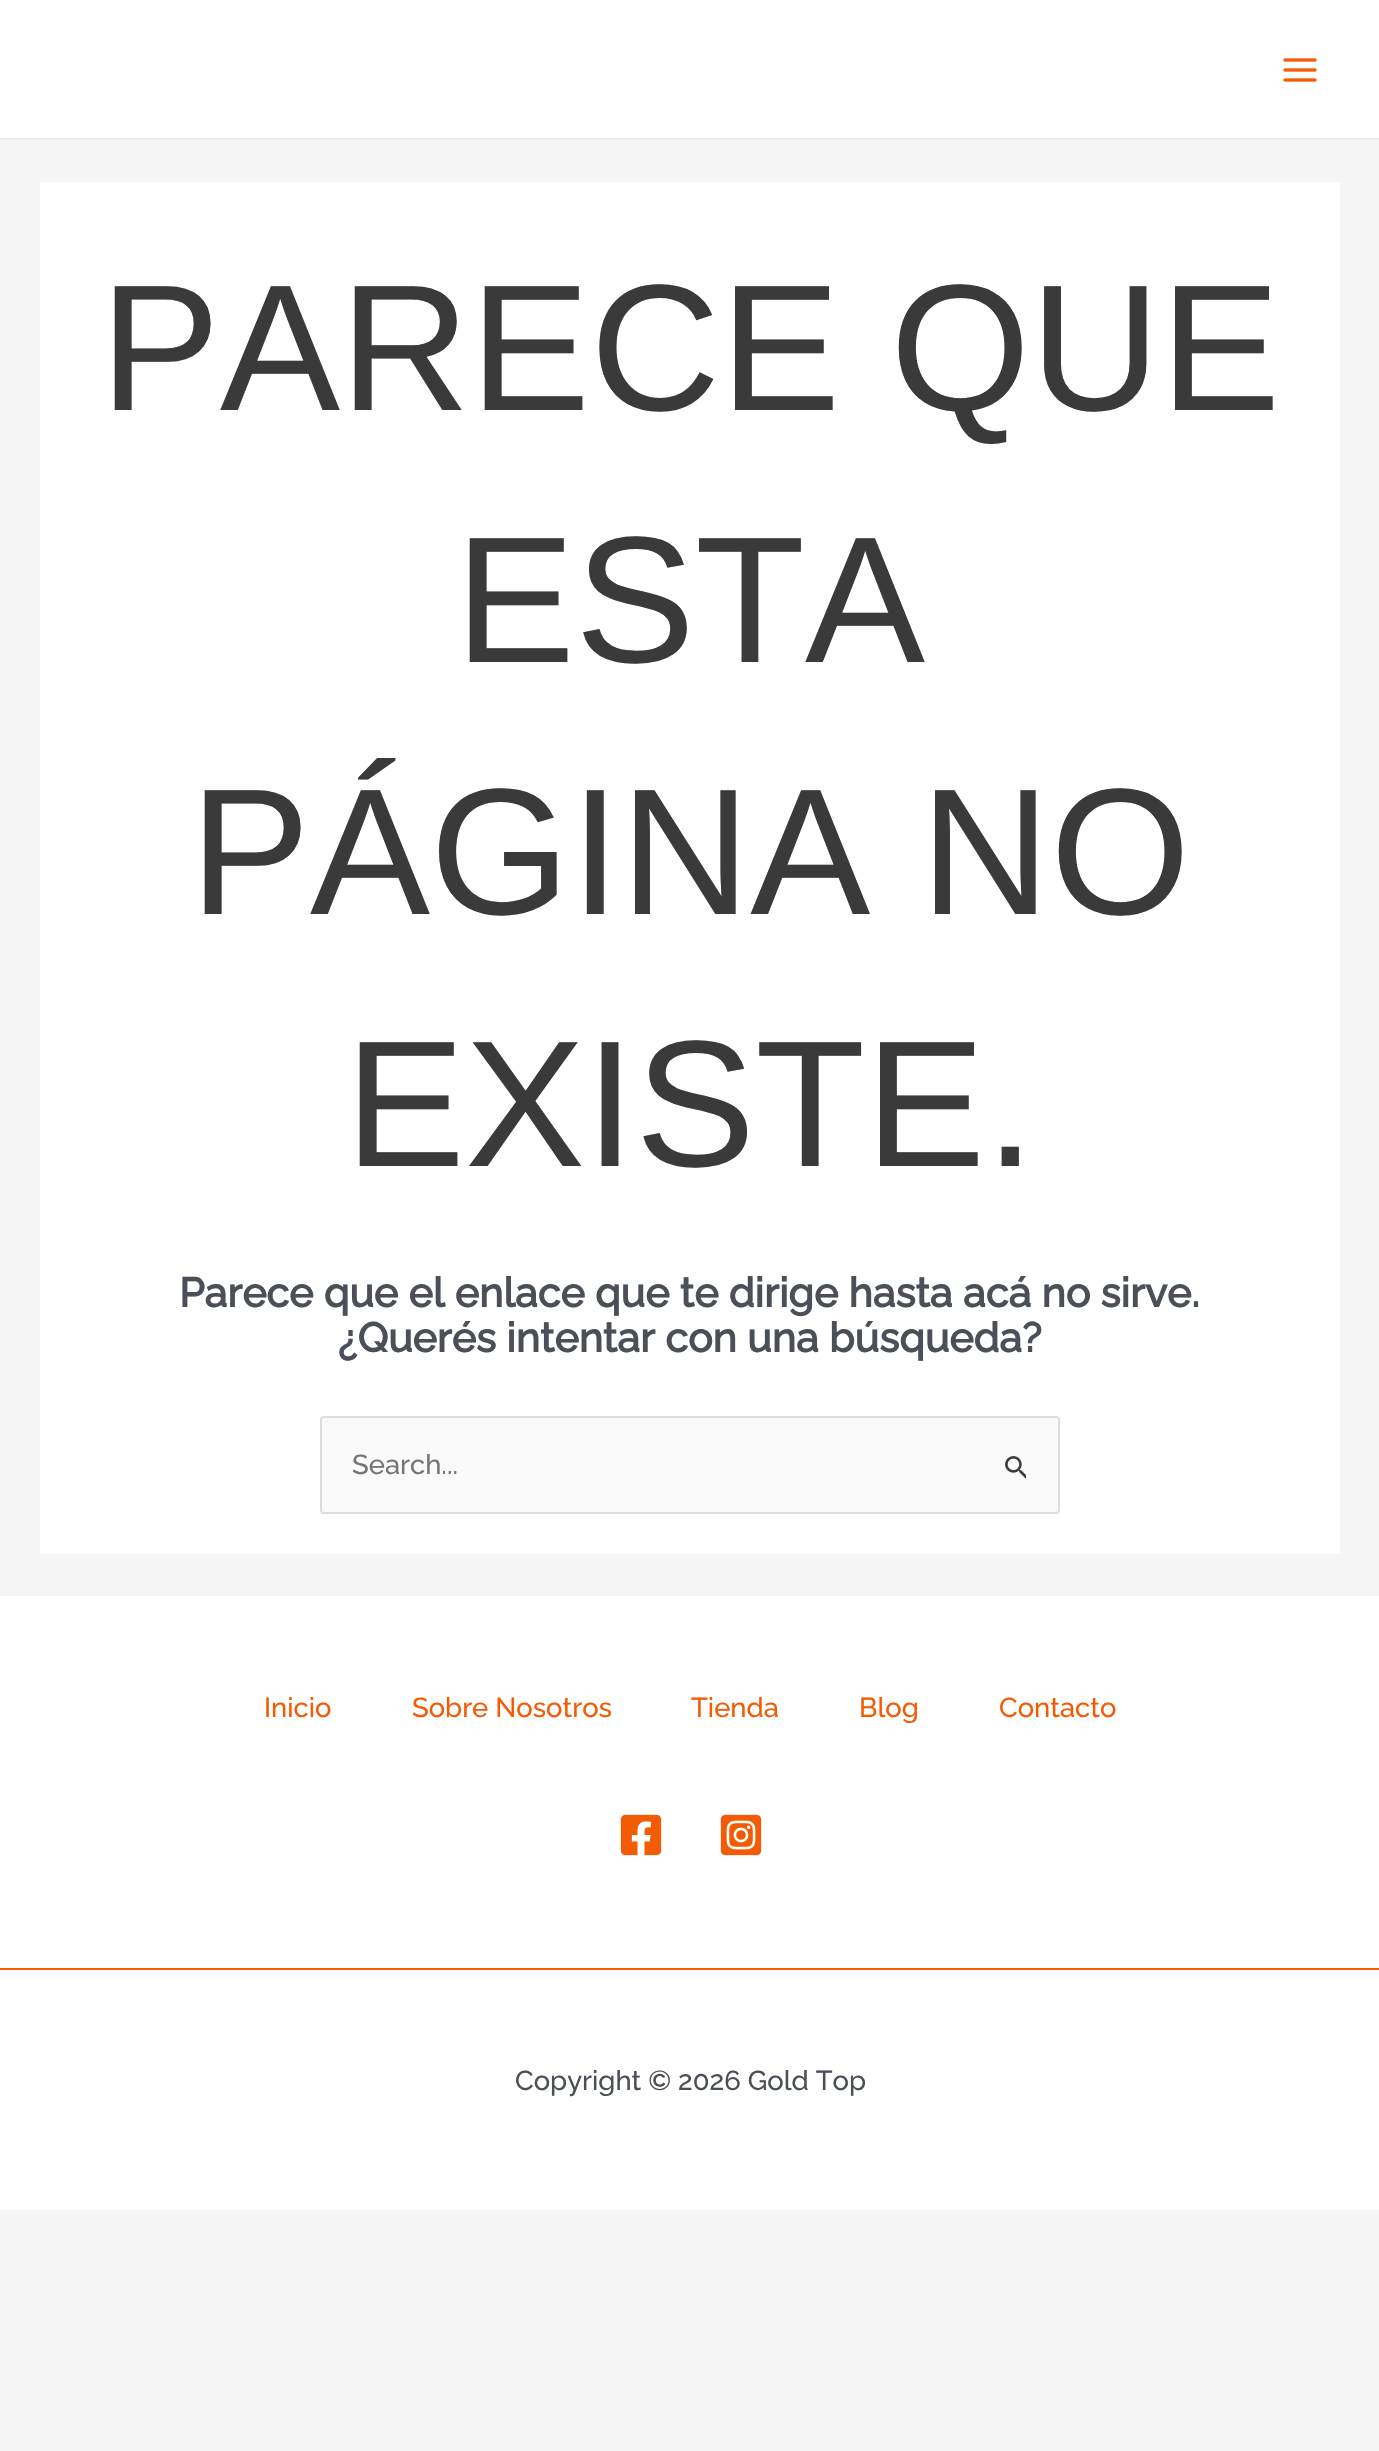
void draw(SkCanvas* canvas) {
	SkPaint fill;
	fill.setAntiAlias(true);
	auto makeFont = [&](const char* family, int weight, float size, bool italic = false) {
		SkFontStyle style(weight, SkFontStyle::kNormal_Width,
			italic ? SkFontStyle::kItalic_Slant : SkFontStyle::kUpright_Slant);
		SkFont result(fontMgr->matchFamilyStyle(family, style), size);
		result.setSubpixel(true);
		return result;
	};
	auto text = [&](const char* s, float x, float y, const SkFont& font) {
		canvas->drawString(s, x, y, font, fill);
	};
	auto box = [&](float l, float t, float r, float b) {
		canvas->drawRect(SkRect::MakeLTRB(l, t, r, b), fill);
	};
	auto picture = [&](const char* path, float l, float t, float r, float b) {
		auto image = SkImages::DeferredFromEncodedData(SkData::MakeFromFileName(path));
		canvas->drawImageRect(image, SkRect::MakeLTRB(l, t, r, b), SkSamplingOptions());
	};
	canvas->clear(0xFFF5F5F5);
	fill.setColor(0xFFFFFFFF);
	box(0, 0, 1379, 138);
	fill.setColor(0xFFEAEAEA);
	box(0, 138, 1379, 140);
	picture("image0.png", 1283, 58, 1317, 82);
	fill.setColor(0xFFFFFFFF);
	box(40, 182, 1340, 1554);
	fill.setColor(0xFFFAFAFA);
	canvas->drawRoundRect(SkRect::MakeLTRB(321, 1417, 1059, 1513), 3, 3, fill);
	fill.setStyle(SkPaint::kStroke_Style);
	fill.setStrokeWidth(2);
	fill.setColor(0xFFDDDDDD);
	canvas->drawRoundRect(SkRect::MakeLTRB(321, 1417, 1059, 1513), 3, 3, fill);
	picture("image1.png", 1005, 1456, 1026, 1479);
	fill.setStyle(SkPaint::kFill_Style);
	fill.setColor(0xFFFFFFFF);
	box(0, 1596, 1379, 1968);
	picture("image2.png", 620, 1814, 662, 1856);
	picture("image3.png", 720, 1814, 762, 1856);
	box(0, 1970, 1379, 2210);
	fill.setColor(0xFFF35B04);
	box(0, 1968, 1379, 1970);
	auto font1 = makeFont("Liberation Sans", 400, 180);
	fill.setColor(0xFF3A3A3A);
	text("PARECE QUE", 100, 410, font1);
	text("ESTA", 455, 662, font1);
	text("PÁGINA NO", 190, 914, font1);
	text("EXISTE.", 345, 1166, font1);
	auto font2 = makeFont("Raleway", 700, 41);
	fill.setColor(0xFF4B4F58);
	text("Parece que el enlace que te dirige hasta acá no sirve.", 179, 1307, font2);
	text("¿Querés intentar con una búsqueda?", 338, 1352, font2);
	auto font3 = makeFont("Raleway", 100, 27.4f);
	fill.setColor(0xFF757575);
	text("Search...", 352, 1474, font3);
	fill.setColor(0xFFF35B04);
	text("Inicio", 264, 1717, font3);
	text("Sobre Nosotros", 412, 1717, font3);
	text("Tienda", 691, 1717, font3);
	text("Blog", 859, 1717, font3);
	text("Contacto", 999, 1717, font3);
	fill.setColor(0xFF4B4F58);
	text("Copyright © 2026 Gold Top", 515, 2090, font3);
}
